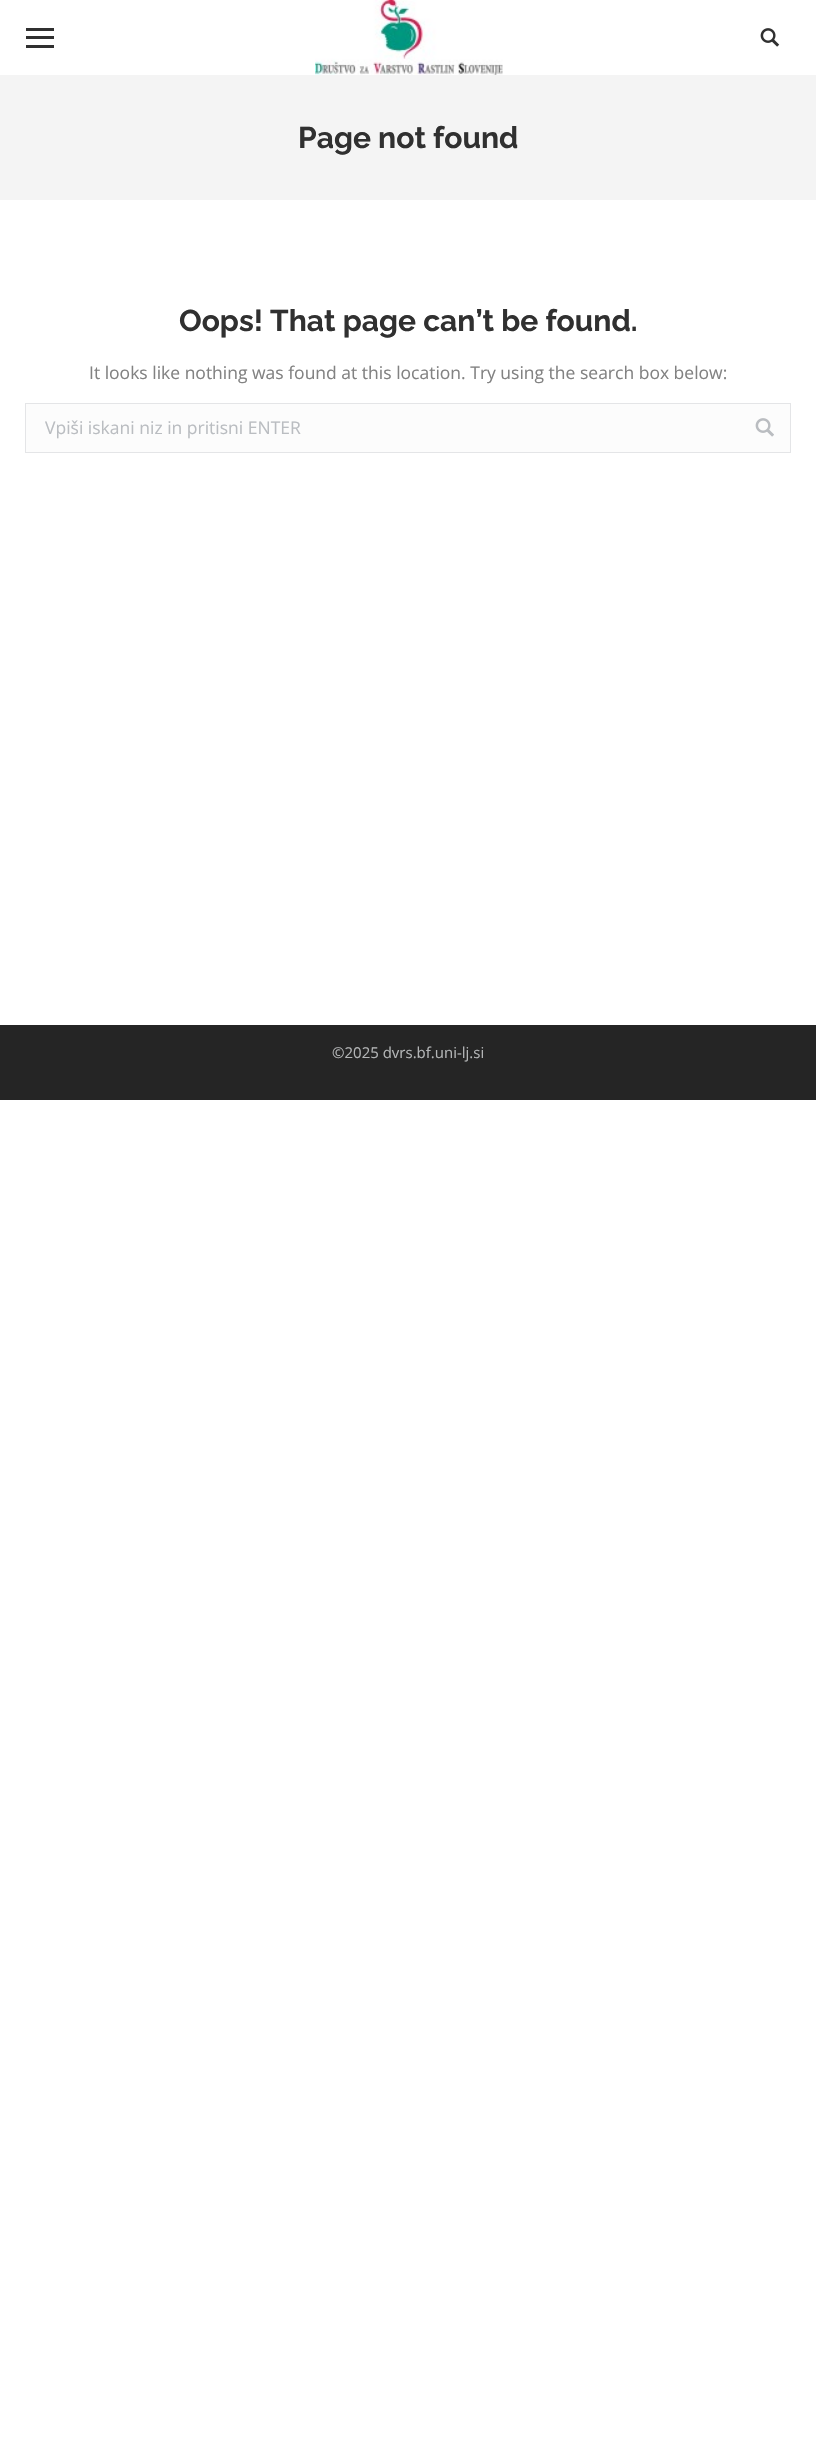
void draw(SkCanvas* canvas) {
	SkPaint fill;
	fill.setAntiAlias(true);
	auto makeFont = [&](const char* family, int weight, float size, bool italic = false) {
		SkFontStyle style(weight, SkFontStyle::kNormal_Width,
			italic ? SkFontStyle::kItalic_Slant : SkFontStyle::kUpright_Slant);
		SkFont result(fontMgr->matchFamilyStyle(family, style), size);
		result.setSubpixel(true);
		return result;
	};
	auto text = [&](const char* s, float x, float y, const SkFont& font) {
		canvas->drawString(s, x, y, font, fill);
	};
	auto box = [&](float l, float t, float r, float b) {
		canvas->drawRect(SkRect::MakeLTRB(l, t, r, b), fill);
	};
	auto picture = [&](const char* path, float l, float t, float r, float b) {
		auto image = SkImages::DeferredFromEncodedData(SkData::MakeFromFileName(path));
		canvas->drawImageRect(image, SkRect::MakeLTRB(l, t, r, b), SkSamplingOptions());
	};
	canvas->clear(0xFFFFFFFF);
	fill.setColor(0xFF303030);
	box(26, 36, 54, 39);
	box(26, 28, 54, 31);
	box(26, 45, 54, 48);
	picture("image0.png", 315, 0, 503, 75);
	picture("image1.png", 760, 28, 780, 47);
	fill.setColor(0xFFF4F4F4);
	box(0, 75, 816, 200);
	fill.setColor(0xFFFCFCFC);
	canvas->drawRect(SkRect::MakeLTRB(25.5f, 403.5f, 790.5f, 452.5f), fill);
	fill.setStyle(SkPaint::kStroke_Style);
	fill.setStrokeWidth(1);
	fill.setColor(0xFFE4E5E7);
	canvas->drawRect(SkRect::MakeLTRB(25.5f, 403.5f, 790.5f, 452.5f), fill);
	picture("image2.png", 755, 418, 774, 437);
	fill.setStyle(SkPaint::kFill_Style);
	fill.setColor(0xFF252525);
	box(0, 1025, 816, 1100);
	auto font1 = makeFont("Raleway", 700, 30);
	fill.setColor(0xFF303030);
	text("Page not found", 298, 148, font1);
	text("Oops! That page can’t be found.", 179, 331, font1);
	auto font2 = makeFont("Open Sans", 400, 17.5f);
	fill.setColor(0xFF828282);
	text("It looks like nothing was found at this location. Try using the search box below:", 89, 379, font2);
	fill.setColor(0xFFBABDC1);
	text("Vpiši iskani niz in pritisni ENTER", 45, 434, font2);
	auto font3 = makeFont("Open Sans", 400, 15);
	fill.setColor(0xFFB3B5B6);
	text("©2025 dvrs.bf.uni-lj.si", 332, 1058, font3);
}
